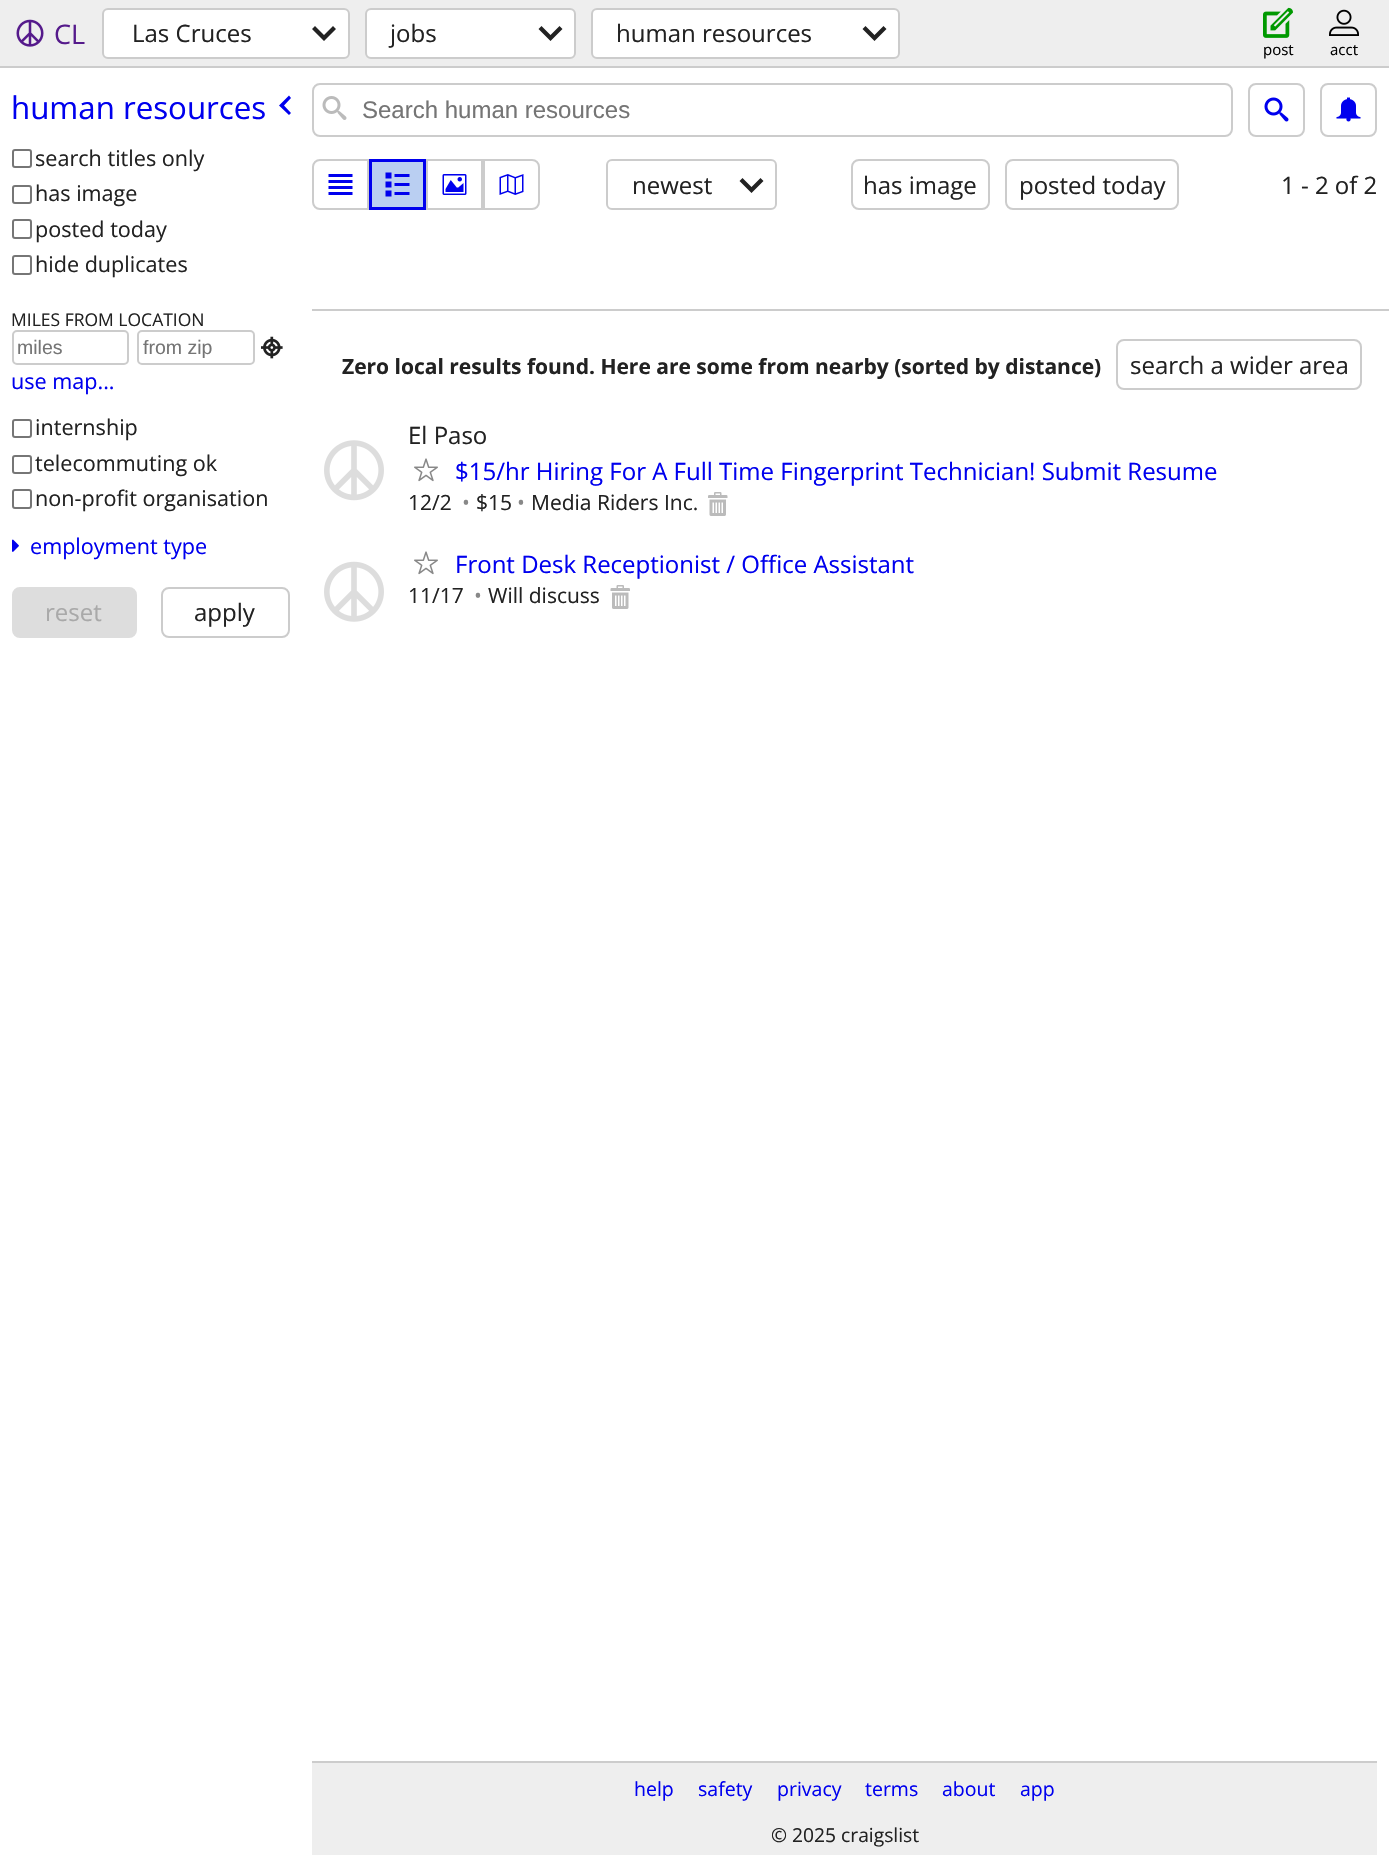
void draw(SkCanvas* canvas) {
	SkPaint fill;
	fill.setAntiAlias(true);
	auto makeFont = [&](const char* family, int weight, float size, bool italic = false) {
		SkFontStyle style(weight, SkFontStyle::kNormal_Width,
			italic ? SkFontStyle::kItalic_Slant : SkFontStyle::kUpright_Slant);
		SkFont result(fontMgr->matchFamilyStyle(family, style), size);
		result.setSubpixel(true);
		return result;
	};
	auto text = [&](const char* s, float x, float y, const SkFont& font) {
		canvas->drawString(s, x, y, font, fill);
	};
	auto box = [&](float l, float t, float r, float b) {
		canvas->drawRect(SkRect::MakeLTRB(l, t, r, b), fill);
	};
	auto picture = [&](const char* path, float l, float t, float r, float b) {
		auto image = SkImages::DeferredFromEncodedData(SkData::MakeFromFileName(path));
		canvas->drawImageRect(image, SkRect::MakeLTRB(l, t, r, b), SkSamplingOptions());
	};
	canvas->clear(0xFFFFFFFF);
	fill.setColor(0xFFEEEEEE);
	box(0, 0, 1389, 66);
	fill.setColor(0xFFCCCCCC);
	box(0, 66, 1389, 68);
	picture("image0.png", 16, 19, 44, 47);
	fill.setColor(0xFFFFFFFF);
	canvas->drawRoundRect(SkRect::MakeLTRB(103, 9, 349, 58), 5, 5, fill);
	fill.setStyle(SkPaint::kStroke_Style);
	fill.setStrokeWidth(2);
	fill.setColor(0xFFCCCCCC);
	canvas->drawRoundRect(SkRect::MakeLTRB(103, 9, 349, 58), 5, 5, fill);
	fill.setStyle(SkPaint::kFill_Style);
	fill.setColor(0xFF222222);
	canvas->drawPath(SkPathBuilder().moveTo(336, 29).lineTo(333, 26).lineTo(324, 35).lineTo(315, 26).lineTo(312, 29).lineTo(324, 41).close().detach(), fill);
	fill.setColor(0xFFFFFFFF);
	canvas->drawRoundRect(SkRect::MakeLTRB(366, 9, 575, 58), 5, 5, fill);
	fill.setStyle(SkPaint::kStroke_Style);
	fill.setColor(0xFFCCCCCC);
	canvas->drawRoundRect(SkRect::MakeLTRB(366, 9, 575, 58), 5, 5, fill);
	fill.setStyle(SkPaint::kFill_Style);
	fill.setColor(0xFF222222);
	canvas->drawPath(SkPathBuilder().moveTo(562.5f, 29).lineTo(559.5f, 26).lineTo(550.5f, 35).lineTo(541.5f, 26).lineTo(538.5f, 29).lineTo(550.5f, 41).close().detach(), fill);
	fill.setColor(0xFFFFFFFF);
	canvas->drawRoundRect(SkRect::MakeLTRB(592, 9, 899, 58), 5, 5, fill);
	fill.setStyle(SkPaint::kStroke_Style);
	fill.setColor(0xFFCCCCCC);
	canvas->drawRoundRect(SkRect::MakeLTRB(592, 9, 899, 58), 5, 5, fill);
	fill.setStyle(SkPaint::kFill_Style);
	fill.setColor(0xFF222222);
	canvas->drawPath(SkPathBuilder().moveTo(886.5f, 29).lineTo(883.5f, 26).lineTo(874.5f, 35).lineTo(865.5f, 26).lineTo(862.5f, 29).lineTo(874.5f, 41).close().detach(), fill);
	picture("image1.png", 1263, 7, 1293, 38);
	picture("image2.png", 1329, 9, 1359, 36);
	fill.setColor(0xFF0000EE);
	canvas->drawPath(SkPathBuilder().moveTo(289, 115).lineTo(291, 113).lineTo(284, 105.5f).lineTo(291, 98).lineTo(289, 95.5f).lineTo(279, 105.5f).close().detach(), fill);
	fill.setStyle(SkPaint::kStroke_Style);
	fill.setColor(0xFF767676);
	canvas->drawRoundRect(SkRect::MakeLTRB(13, 150, 31, 167), 2, 2, fill);
	canvas->drawRoundRect(SkRect::MakeLTRB(13, 186, 31, 203), 2, 2, fill);
	canvas->drawRoundRect(SkRect::MakeLTRB(13, 220, 31, 238), 2, 2, fill);
	canvas->drawRoundRect(SkRect::MakeLTRB(13, 256, 31, 274), 2, 2, fill);
	fill.setColor(0xFFCCCCCC);
	canvas->drawRoundRect(SkRect::MakeLTRB(13, 331, 128, 364), 4, 4, fill);
	canvas->drawRoundRect(SkRect::MakeLTRB(138, 331, 254, 364), 4, 4, fill);
	picture("image3.png", 261, 336, 283, 359);
	fill.setColor(0xFF767676);
	canvas->drawRoundRect(SkRect::MakeLTRB(13, 420, 31, 437), 2, 2, fill);
	canvas->drawRoundRect(SkRect::MakeLTRB(13, 456, 31, 473), 2, 2, fill);
	canvas->drawRoundRect(SkRect::MakeLTRB(13, 490, 31, 508), 2, 2, fill);
	picture("image4.png", 12, 539, 19, 552);
	fill.setStyle(SkPaint::kFill_Style);
	fill.setColor(0xFFDDDDDD);
	canvas->drawRoundRect(SkRect::MakeLTRB(13, 588, 136, 637), 7, 7, fill);
	fill.setStyle(SkPaint::kStroke_Style);
	canvas->drawRoundRect(SkRect::MakeLTRB(13, 588, 136, 637), 7, 7, fill);
	fill.setColor(0xFFCCCCCC);
	canvas->drawRoundRect(SkRect::MakeLTRB(162, 588, 289, 637), 7, 7, fill);
	canvas->drawRoundRect(SkRect::MakeLTRB(313, 84, 1232, 136), 7, 7, fill);
	picture("image5.png", 322, 96, 347, 120);
	canvas->drawRoundRect(SkRect::MakeLTRB(1249, 84, 1304, 136), 7, 7, fill);
	picture("image6.png", 1264, 97, 1289, 122);
	canvas->drawRoundRect(SkRect::MakeLTRB(1321, 84, 1376, 136), 7, 7, fill);
	picture("image7.png", 1336, 97, 1361, 122);
	canvas->drawPath(SkPathBuilder().moveTo(320, 160).lineTo(368, 160).lineTo(368, 209).lineTo(320, 209).cubicTo(316, 209, 313, 206, 313, 202).lineTo(313, 167).cubicTo(313, 163, 316, 160, 320, 160).close().detach(), fill);
	picture("image8.png", 328, 174, 353, 195);
	fill.setStyle(SkPaint::kFill_Style);
	fill.setColor(0xFFBACFF2);
	canvas->drawRect(SkRect::MakeLTRB(370.5f, 160.5f, 424.5f, 208.5f), fill);
	fill.setStyle(SkPaint::kStroke_Style);
	fill.setStrokeWidth(3);
	fill.setColor(0xFF0000EE);
	canvas->drawRect(SkRect::MakeLTRB(370.5f, 160.5f, 424.5f, 208.5f), fill);
	picture("image9.png", 385, 172, 410, 197);
	fill.setStrokeWidth(2);
	fill.setColor(0xFFCCCCCC);
	canvas->drawRect(SkRect::MakeLTRB(427, 160, 482, 209), fill);
	picture("image10.png", 442, 174, 467, 195);
	canvas->drawPath(SkPathBuilder().moveTo(484, 160).lineTo(532, 160).cubicTo(536, 160, 539, 163, 539, 167).lineTo(539, 202).cubicTo(539, 206, 536, 209, 532, 209).lineTo(484, 209).close().detach(), fill);
	picture("image11.png", 499, 174, 524, 195);
	canvas->drawRoundRect(SkRect::MakeLTRB(607, 160, 776, 209), 5, 5, fill);
	fill.setStyle(SkPaint::kFill_Style);
	fill.setColor(0xFF222222);
	canvas->drawPath(SkPathBuilder().moveTo(763.5f, 181).lineTo(760.5f, 178).lineTo(751.5f, 187).lineTo(742.5f, 178).lineTo(739.5f, 181).lineTo(751.5f, 193).close().detach(), fill);
	fill.setStyle(SkPaint::kStroke_Style);
	fill.setColor(0xFFCCCCCC);
	canvas->drawRoundRect(SkRect::MakeLTRB(852, 160, 989, 209), 7, 7, fill);
	canvas->drawRoundRect(SkRect::MakeLTRB(1006, 160, 1178, 209), 7, 7, fill);
	fill.setStyle(SkPaint::kFill_Style);
	box(312, 309, 1389, 311);
	fill.setStyle(SkPaint::kStroke_Style);
	canvas->drawRoundRect(SkRect::MakeLTRB(1117, 340, 1361, 389), 7, 7, fill);
	picture("image12.png", 324, 440, 384, 501);
	picture("image13.png", 414, 458, 438, 482);
	picture("image14.png", 708, 492, 728, 516);
	picture("image15.png", 324, 561, 384, 622);
	picture("image13.png", 414, 551, 438, 575);
	picture("image16.png", 610, 585, 630, 609);
	fill.setStyle(SkPaint::kFill_Style);
	fill.setColor(0xFFEEEEEE);
	box(312, 1763, 1377, 1855);
	fill.setColor(0xFFCCCCCC);
	box(312, 1761, 1377, 1763);
	auto font1 = makeFont("Open Sans", 400, 27);
	fill.setColor(0xFF551A8B);
	text("CL", 54, 44, font1);
	auto font2 = makeFont("Open Sans", 400, 24);
	fill.setColor(0xFF222222);
	text("Las Cruces", 132, 42, font2);
	text("jobs", 390, 42, font2);
	text("human resources", 616, 42, font2);
	auto font3 = makeFont("Open Sans", 400, 15);
	fill.setColor(0xFF000000);
	text("post", 1263, 55, font3);
	text("acct", 1330, 55, font3);
	auto font4 = makeFont("Open Sans", 400, 31.25f);
	fill.setColor(0xFF0000EE);
	text("human resources", 11, 119, font4);
	auto font5 = makeFont("Open Sans", 400, 21.6f);
	fill.setColor(0xFF222222);
	text("search titles only", 35, 166, font5);
	text("has image", 35, 201, font5);
	text("posted today", 35, 237, font5);
	text("hide duplicates", 35, 272, font5);
	auto font6 = makeFont("Open Sans", 400, 17.5f);
	text("MILES FROM LOCATION", 11, 326, font6);
	auto font7 = makeFont("Liberation Sans", 400, 19.5f);
	fill.setColor(0xFF757575);
	text("miles", 17, 354, font7);
	text("from zip", 143, 354, font7);
	fill.setColor(0xFF0000EE);
	text("use map...", 11, 389, font5);
	fill.setColor(0xFF222222);
	text("internship", 35, 435, font5);
	text("telecommuting ok", 35, 471, font5);
	text("non-profit organisation", 35, 506, font5);
	fill.setColor(0xFF0000EE);
	text("employment type", 30, 554, font5);
	fill.setColor(0xFFA9A9A9);
	text("reset", 45, 621, font2);
	fill.setColor(0xFF222222);
	text("apply", 194, 621, font2);
	auto font8 = makeFont("Liberation Sans", 400, 24);
	fill.setColor(0xFF757575);
	text("Search human resources", 362, 118, font8);
	fill.setColor(0xFF222222);
	text("newest", 632, 194, font2);
	text("has image", 863, 194, font2);
	text("posted today", 1019, 194, font2);
	text("1 - 2 of 2", 1281, 194, font2);
	auto font9 = makeFont("Open Sans", 700, 21);
	text("Zero local results found. Here are some from nearby (sorted by distance)", 342, 374, font9);
	text("search a wider area", 1130, 374, font2);
	text("El Paso", 408, 444, font2);
	fill.setColor(0xFF0000EE);
	text("$15/hr Hiring For A Full Time Fingerprint Technician! Submit Resume", 455, 480, font2);
	auto font10 = makeFont("Open Sans", 400, 21);
	fill.setColor(0xFF222222);
	text("12/2", 408, 510, font10);
	fill.setColor(0xFF888888);
	text("•", 462, 510, font10);
	fill.setColor(0xFF222222);
	text("$15", 476, 510, font10);
	fill.setColor(0xFF888888);
	text("•", 517, 510, font10);
	fill.setColor(0xFF222222);
	text("Media Riders Inc.", 531, 510, font10);
	fill.setColor(0xFF0000EE);
	text("Front Desk Receptionist / Office Assistant", 455, 573, font2);
	fill.setColor(0xFF222222);
	text("11/17", 408, 603, font10);
	fill.setColor(0xFF888888);
	text("•", 474, 603, font10);
	fill.setColor(0xFF222222);
	text("Will discuss", 488, 603, font10);
	auto font11 = makeFont("Open Sans", 400, 19.5f);
	fill.setColor(0xFF0000EE);
	text("help", 634, 1796, font11);
	text("safety", 698, 1796, font11);
	text("privacy", 777, 1796, font11);
	text("terms", 865, 1796, font11);
	text("about", 942, 1796, font11);
	text("app", 1020, 1796, font11);
	auto font12 = makeFont("Open Sans", 400, 19.25f);
	fill.setColor(0xFF222222);
	text("© 2025 craigslist", 771, 1842, font12);
}
